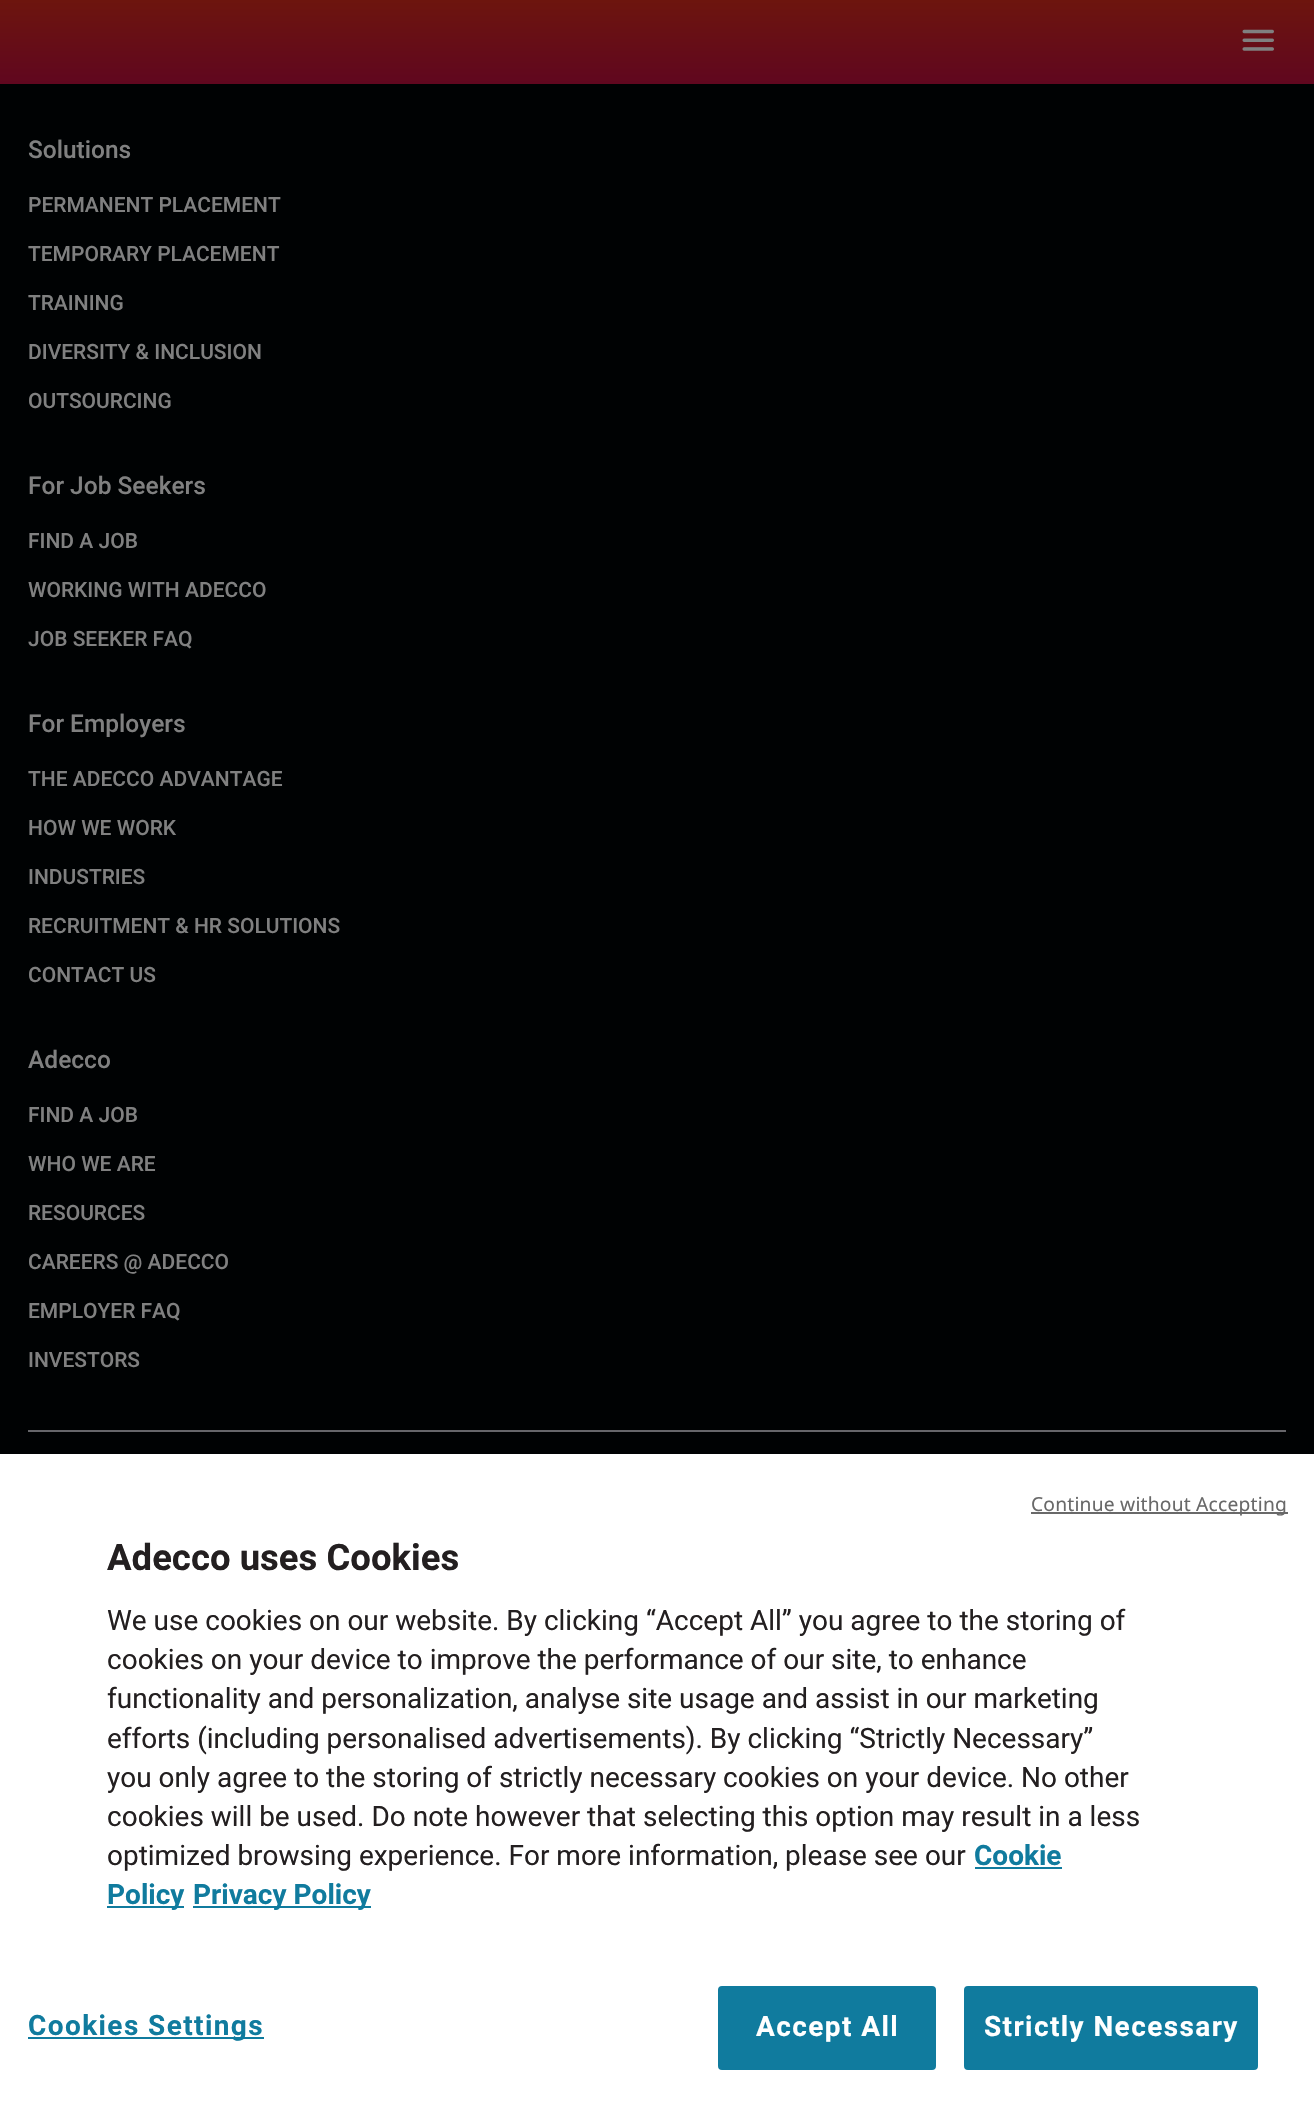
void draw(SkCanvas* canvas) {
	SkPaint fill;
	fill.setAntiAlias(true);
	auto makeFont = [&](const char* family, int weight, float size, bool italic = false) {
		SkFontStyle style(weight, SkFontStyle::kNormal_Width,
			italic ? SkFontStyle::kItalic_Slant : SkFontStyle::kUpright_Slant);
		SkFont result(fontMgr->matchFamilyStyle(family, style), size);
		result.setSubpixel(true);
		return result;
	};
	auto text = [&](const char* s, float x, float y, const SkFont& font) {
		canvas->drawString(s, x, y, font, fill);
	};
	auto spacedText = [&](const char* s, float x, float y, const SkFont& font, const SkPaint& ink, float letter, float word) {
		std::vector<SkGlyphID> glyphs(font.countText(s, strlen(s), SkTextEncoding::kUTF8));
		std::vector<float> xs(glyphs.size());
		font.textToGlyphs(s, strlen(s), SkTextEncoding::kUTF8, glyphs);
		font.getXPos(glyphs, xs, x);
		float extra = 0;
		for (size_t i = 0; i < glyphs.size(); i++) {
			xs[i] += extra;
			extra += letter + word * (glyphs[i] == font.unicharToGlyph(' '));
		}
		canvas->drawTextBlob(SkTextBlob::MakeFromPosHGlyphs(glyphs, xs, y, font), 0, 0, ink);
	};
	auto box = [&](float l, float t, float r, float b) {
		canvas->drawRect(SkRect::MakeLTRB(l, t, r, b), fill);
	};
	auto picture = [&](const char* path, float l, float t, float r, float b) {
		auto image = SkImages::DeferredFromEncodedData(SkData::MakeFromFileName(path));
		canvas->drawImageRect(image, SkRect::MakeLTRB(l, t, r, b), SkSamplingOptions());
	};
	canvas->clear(0xFF000203);
	{
		const SkColor colors[] = {0xFF6D150E, 0xFF60071F};
		const float stops[] = {0, 1};
		const SkPoint ends[] = {{657, 0}, {657, 84}};
		fill.setShader(SkGradientShader::MakeLinear(ends, colors, stops, 2, SkTileMode::kClamp));
		fill.setAlpha(255);
	}
	box(0, 0, 1314, 84);
	picture("image0.png", 1242, 29, 1274, 51);
	fill.setShader(nullptr);
	fill.setColor(0xFF66666A);
	box(28, 1430, 1286, 1432);
	fill.setColor(0xFFFFFFFF);
	box(0, 1454, 1314, 2107);
	fill.setColor(0xFF696969);
	box(1031, 1512, 1288, 1514);
	fill.setColor(0xFF107B9E);
	box(975, 1867, 1062, 1869);
	box(107, 1906, 184, 1908);
	box(193, 1906, 371, 1908);
	box(28, 2037, 264, 2039);
	canvas->drawRoundRect(SkRect::MakeLTRB(719, 1987, 935, 2069), 3, 3, fill);
	fill.setStyle(SkPaint::kStroke_Style);
	fill.setStrokeWidth(2);
	canvas->drawRoundRect(SkRect::MakeLTRB(719, 1987, 935, 2069), 3, 3, fill);
	fill.setStyle(SkPaint::kFill_Style);
	canvas->drawRoundRect(SkRect::MakeLTRB(965, 1987, 1257, 2069), 3, 3, fill);
	fill.setStyle(SkPaint::kStroke_Style);
	canvas->drawRoundRect(SkRect::MakeLTRB(965, 1987, 1257, 2069), 3, 3, fill);
	auto font1 = makeFont("Roboto", 500, 24.5f);
	fill.setStyle(SkPaint::kFill_Style);
	fill.setColor(0xFF808080);
	text("Solutions", 28, 158, font1);
	auto font2 = makeFont("Roboto", 500, 21);
	text("PERMANENT PLACEMENT", 28, 212, font2);
	text("TEMPORARY PLACEMENT", 28, 261, font2);
	text("TRAINING", 28, 310, font2);
	text("DIVERSITY & INCLUSION", 28, 359, font2);
	text("OUTSOURCING", 28, 408, font2);
	text("For Job Seekers", 28, 494, font1);
	text("FIND A JOB", 28, 548, font2);
	text("WORKING WITH ADECCO", 28, 597, font2);
	text("JOB SEEKER FAQ", 28, 646, font2);
	text("For Employers", 28, 732, font1);
	text("THE ADECCO ADVANTAGE", 28, 786, font2);
	text("HOW WE WORK", 28, 835, font2);
	text("INDUSTRIES", 28, 884, font2);
	text("RECRUITMENT & HR SOLUTIONS", 28, 933, font2);
	text("CONTACT US", 28, 982, font2);
	text("Adecco", 28, 1068, font1);
	text("FIND A JOB", 28, 1122, font2);
	text("WHO WE ARE", 28, 1171, font2);
	text("RESOURCES", 28, 1220, font2);
	text("CAREERS @ ADECCO", 28, 1269, font2);
	text("EMPLOYER FAQ", 28, 1318, font2);
	text("INVESTORS", 28, 1367, font2);
	auto font3 = makeFont("Noto Sans", 400, 19.25f);
	fill.setColor(0xFF696969);
	spacedText("Continue without Accepting", 1031, 1511, font3, fill, 0.2f, 0);
	auto font4 = makeFont("Roboto", 700, 36.5f);
	fill.setColor(0xFF231F20);
	text("Adecco uses Cookies", 107, 1570, font4);
	auto font5 = makeFont("Roboto", 400, 28);
	text("We use cookies on our website. By clicking “Accept All” you agree to the storing of", 107, 1630, font5);
	text("cookies on your device to improve the performance of our site, to enhance", 107, 1669, font5);
	text("functionality and personalization, analyse site usage and assist in our marketing", 107, 1708, font5);
	text("efforts (including personalised advertisements). By clicking “Strictly Necessary”", 107, 1748, font5);
	text("you only agree to the storing of strictly necessary cookies on your device. No other", 107, 1787, font5);
	text("cookies will be used. Do note however that selecting this option may result in a less", 107, 1826, font5);
	text("optimized browsing experience. For more information, please see our", 107, 1865, font5);
	auto font6 = makeFont("Roboto", 700, 28);
	fill.setColor(0xFF107B9E);
	text("Cookie", 974, 1865, font6);
	text("Policy", 107, 1904, font6);
	text("Privacy Policy", 193, 1904, font6);
	spacedText("Cookies Settings", 28, 2035, font6, fill, 1.4f, 0);
	fill.setColor(0xFFFFFFFF);
	spacedText("Accept All", 756, 2036, font6, fill, 1.4f, 0);
	spacedText("Strictly Necessary", 984, 2036, font6, fill, 1.4f, 0);
}
